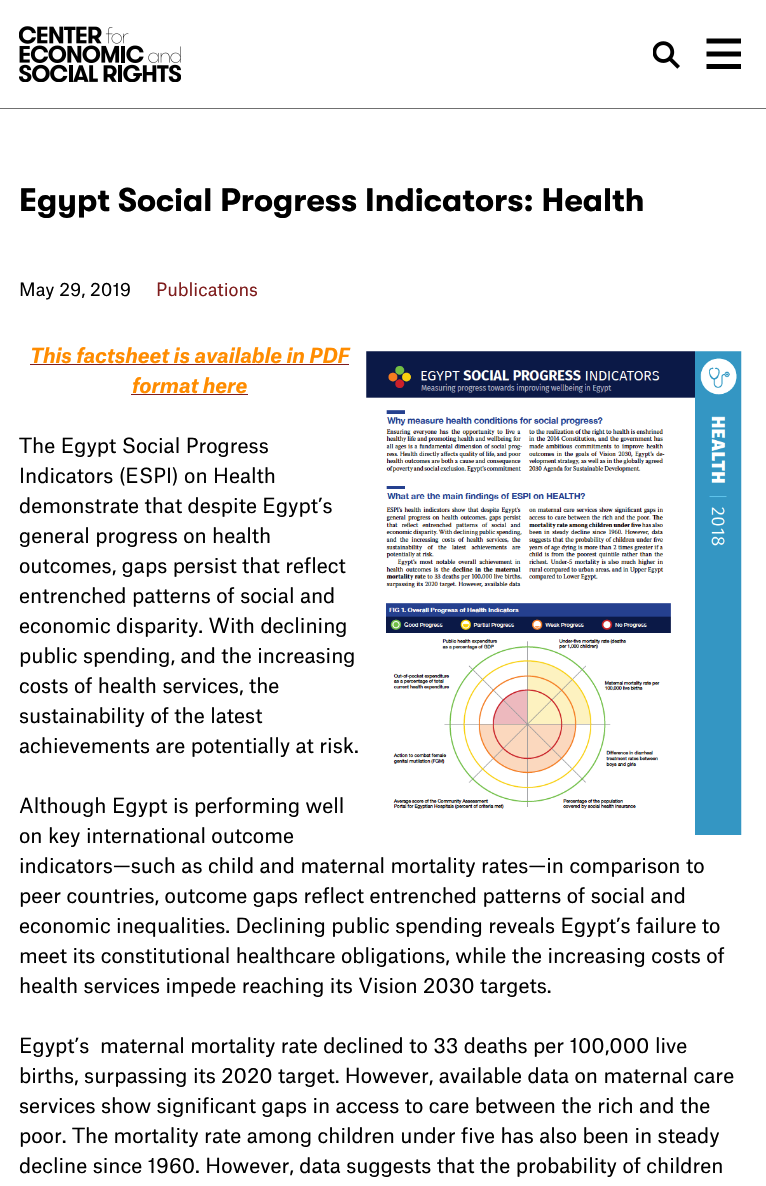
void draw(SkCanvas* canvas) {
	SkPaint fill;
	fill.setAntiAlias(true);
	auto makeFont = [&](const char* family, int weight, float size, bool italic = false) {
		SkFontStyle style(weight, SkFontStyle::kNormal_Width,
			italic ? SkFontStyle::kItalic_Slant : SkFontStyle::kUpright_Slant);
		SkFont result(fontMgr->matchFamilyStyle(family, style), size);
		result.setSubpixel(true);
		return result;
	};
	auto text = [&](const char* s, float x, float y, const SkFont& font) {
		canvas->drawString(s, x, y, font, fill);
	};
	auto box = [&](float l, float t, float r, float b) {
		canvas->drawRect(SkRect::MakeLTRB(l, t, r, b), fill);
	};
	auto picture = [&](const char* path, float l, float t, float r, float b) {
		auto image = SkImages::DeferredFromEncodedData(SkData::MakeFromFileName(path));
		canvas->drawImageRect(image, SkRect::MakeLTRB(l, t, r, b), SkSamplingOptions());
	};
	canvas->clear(0xFFFFFFFF);
	fill.setColor(0xFF707070);
	box(0, 108, 766, 109);
	picture("image0.png", 19, 26, 181, 82);
	picture("image1.png", 653, 41, 680, 69);
	fill.setStyle(SkPaint::kStroke_Style);
	fill.setStrokeWidth(4.8f);
	fill.setColor(0xFF000000);
	canvas->drawPath(SkPathBuilder().moveTo(706.5f, 41).lineTo(741, 41).moveTo(706.5f, 54).lineTo(741, 54).moveTo(706.5f, 66.5f).lineTo(741, 66.5f).detach(), fill);
	fill.setStyle(SkPaint::kFill_Style);
	fill.setColor(0xFF7F1D1D);
	box(30, 364, 349, 365);
	box(131, 394, 248, 395);
	picture("image2.png", 366, 351, 742, 835);
	auto font1 = makeFont("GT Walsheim", 700, 32.5f);
	fill.setColor(0xFF000000);
	text("Egypt Social Progress Indicators: Health", 19, 211, font1);
	auto font2 = makeFont("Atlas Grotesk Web", 400, 17.5f);
	text("May 29, 2019", 19, 296, font2);
	fill.setColor(0xFF7F1D1D);
	text("Publications", 156, 296, font2);
	auto font3 = makeFont("Atlas Grotesk Web", 700, 20, true);
	fill.setColor(0xFFFF8C00);
	text("This factsheet is available in PDF", 30, 363, font3);
	text("format here", 132, 393, font3);
	auto font4 = makeFont("Atlas Grotesk Web", 400, 20);
	fill.setColor(0xFF000000);
	text("The Egypt Social Progress", 19, 453, font4);
	text("Indicators (ESPI) on Health", 19, 483, font4);
	text("demonstrate that despite Egypt’s", 19, 513, font4);
	text("general progress on health", 19, 543, font4);
	text("outcomes, gaps persist that reflect", 19, 573, font4);
	text("entrenched patterns of social and", 19, 603, font4);
	text("economic disparity. With declining", 19, 633, font4);
	text("public spending, and the increasing", 19, 663, font4);
	text("costs of health services, the", 19, 693, font4);
	text("sustainability of the latest", 19, 723, font4);
	text("achievements are potentially at risk.", 19, 753, font4);
	text("Although Egypt is performing well", 19, 813, font4);
	text("on key international outcome", 19, 843, font4);
	text("indicators—such as child and maternal mortality rates—in comparison to", 19, 873, font4);
	text("peer countries, outcome gaps reflect entrenched patterns of social and", 19, 903, font4);
	text("economic inequalities. Declining public spending reveals Egypt’s failure to", 19, 933, font4);
	text("meet its constitutional healthcare obligations, while the increasing costs of", 19, 963, font4);
	text("health services impede reaching its Vision 2030 targets.", 19, 993, font4);
	text("Egypt’s  maternal mortality rate declined to 33 deaths per 100,000 live", 19, 1053, font4);
	text("births, surpassing its 2020 target. However, available data on maternal care", 19, 1083, font4);
	text("services show significant gaps in access to care between the rich and the", 19, 1113, font4);
	text("poor. The mortality rate among children under five has also been in steady", 19, 1143, font4);
	text("decline since 1960. However, data suggests that the probability of children", 19, 1173, font4);
}
